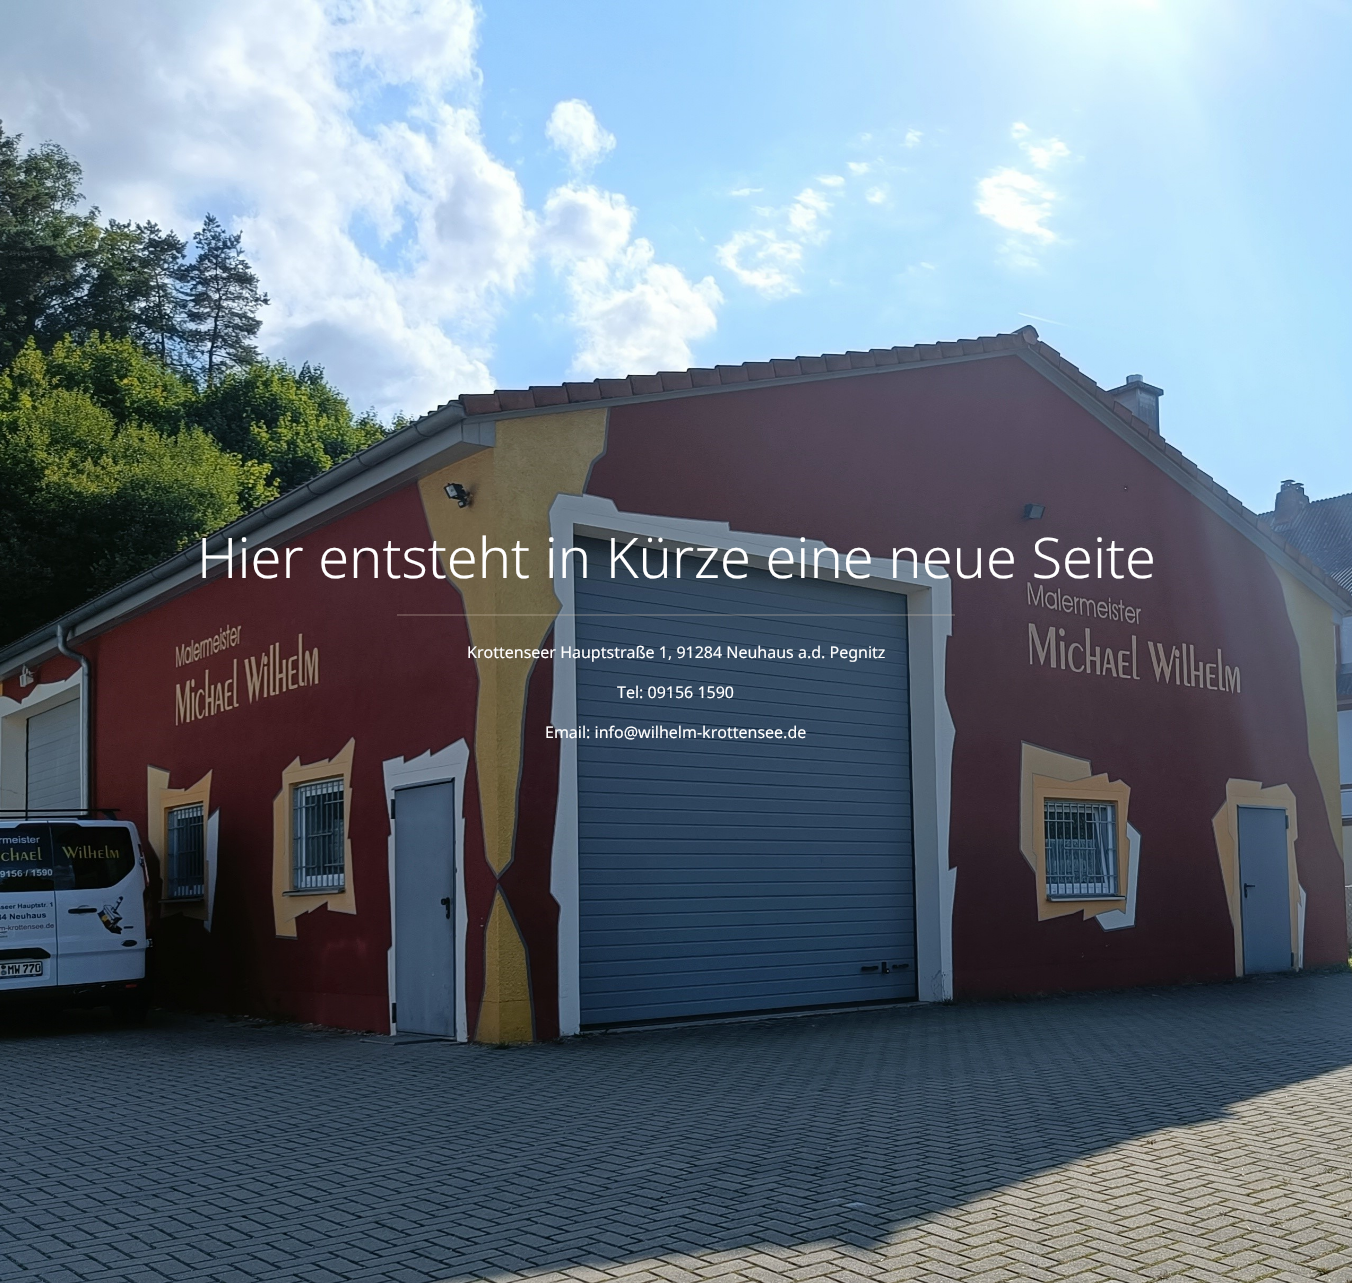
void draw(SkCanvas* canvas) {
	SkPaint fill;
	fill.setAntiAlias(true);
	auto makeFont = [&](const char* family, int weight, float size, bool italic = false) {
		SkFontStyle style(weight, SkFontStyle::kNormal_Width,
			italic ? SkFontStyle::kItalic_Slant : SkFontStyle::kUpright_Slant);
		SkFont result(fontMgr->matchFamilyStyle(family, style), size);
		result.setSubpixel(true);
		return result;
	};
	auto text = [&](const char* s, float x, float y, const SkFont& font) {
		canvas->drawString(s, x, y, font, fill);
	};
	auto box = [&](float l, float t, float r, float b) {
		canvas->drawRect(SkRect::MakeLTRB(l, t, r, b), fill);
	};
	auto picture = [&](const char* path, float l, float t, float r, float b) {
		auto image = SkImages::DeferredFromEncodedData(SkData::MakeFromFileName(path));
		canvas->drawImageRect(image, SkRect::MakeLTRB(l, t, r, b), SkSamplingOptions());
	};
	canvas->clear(0xFFFFFFFF);
	picture("image0.png", 0, 0, 1352, 1283);
	fill.setColor(0x40D4C3B3);
	box(397, 614, 955, 616);
	auto font1 = makeFont("Noto Sans", 300, 56);
	fill.setColor(0xFFFFFFFF);
	text("Hier entsteht in Kürze eine neue Seite", 197, 578, font1);
	auto font2 = makeFont("Noto Sans", 400, 16);
	text("Krottenseer Hauptstraße 1, 91284 Neuhaus a.d. Pegnitz", 467, 658, font2);
	text("Tel: 09156 1590", 617, 698, font2);
	text("Email: info@wilhelm-krottensee.de", 545, 738, font2);
}
